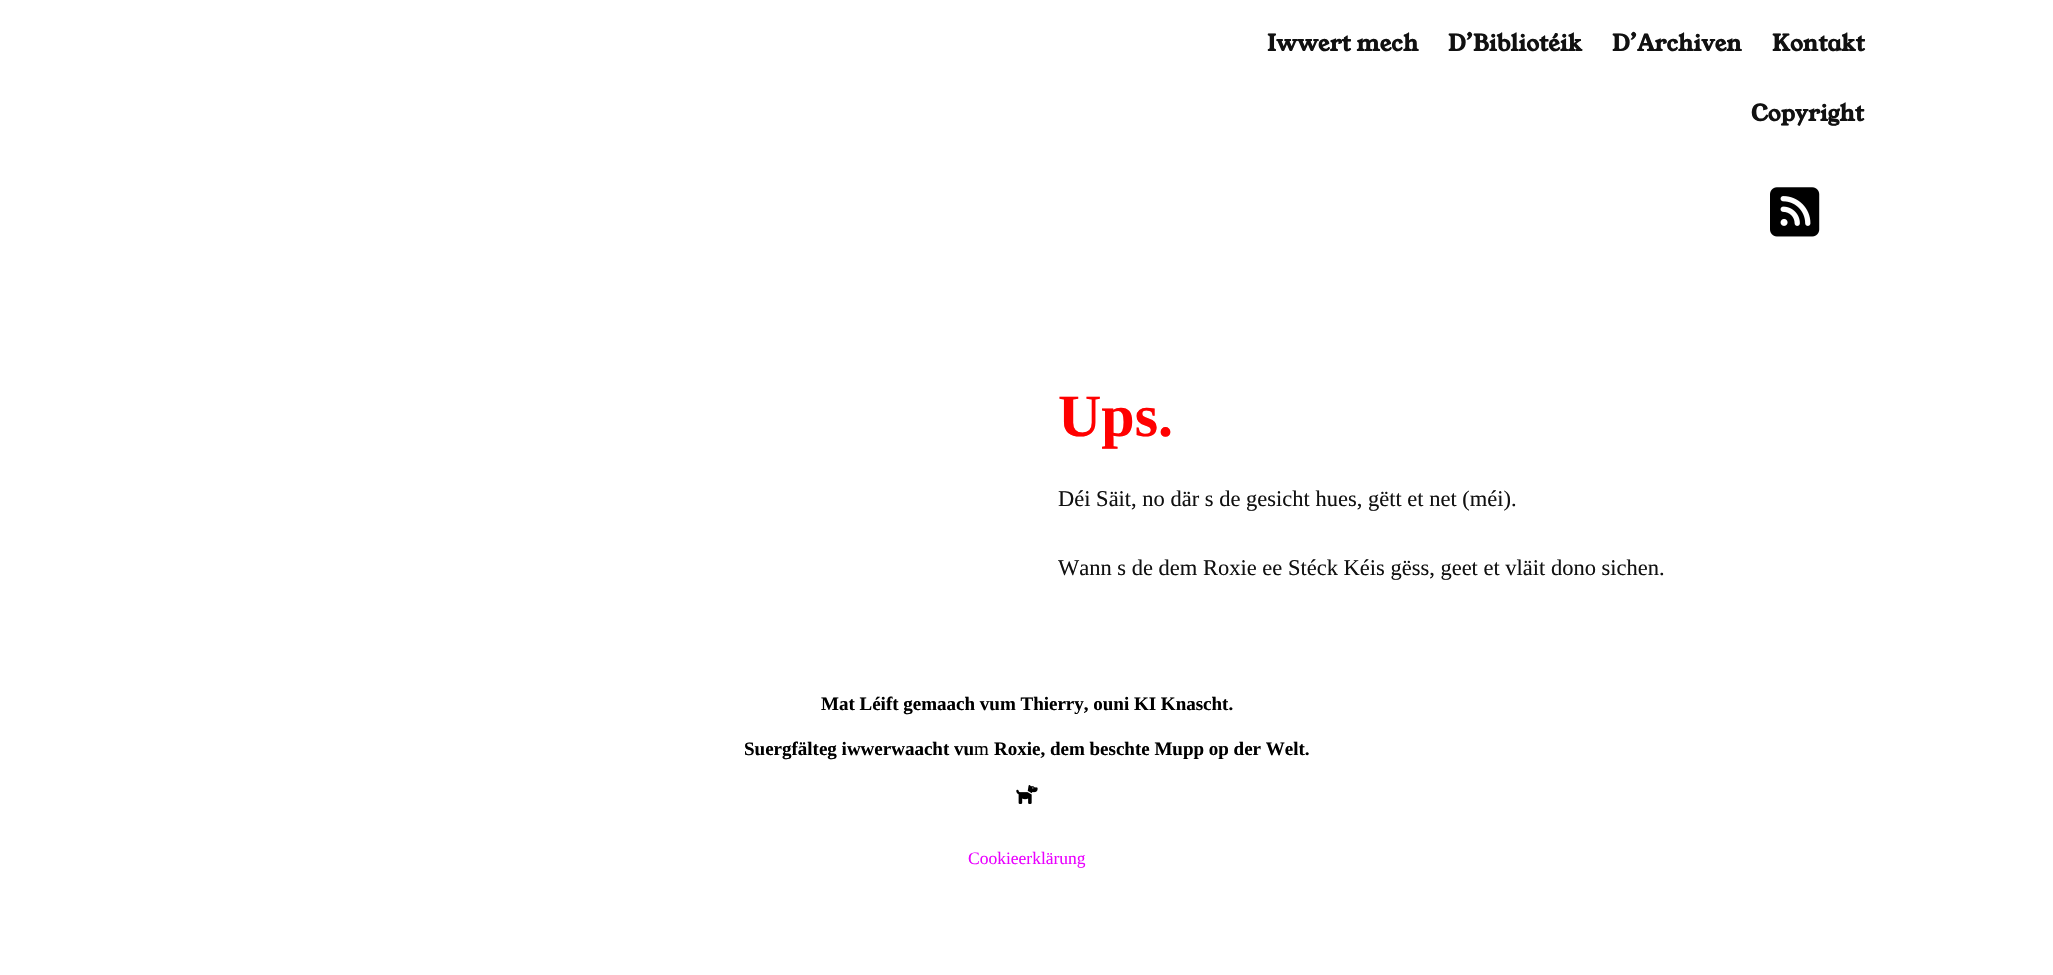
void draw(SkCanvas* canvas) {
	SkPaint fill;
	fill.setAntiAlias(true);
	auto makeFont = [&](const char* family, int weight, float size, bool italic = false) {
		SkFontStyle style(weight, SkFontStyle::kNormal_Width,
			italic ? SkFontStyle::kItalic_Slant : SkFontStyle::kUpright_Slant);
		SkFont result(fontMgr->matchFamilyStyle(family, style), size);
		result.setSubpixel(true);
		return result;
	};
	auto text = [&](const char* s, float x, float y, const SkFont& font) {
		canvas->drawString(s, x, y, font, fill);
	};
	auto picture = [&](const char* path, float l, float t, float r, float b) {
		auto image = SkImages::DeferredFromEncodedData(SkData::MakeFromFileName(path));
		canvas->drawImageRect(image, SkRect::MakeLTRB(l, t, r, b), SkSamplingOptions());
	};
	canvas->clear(0xFFFFFFFF);
	picture("image0.png", 1770, 187, 1820, 237);
	picture("image1.png", 1016, 785, 1038, 804);
	auto font1 = makeFont("Young Serif", 700, 22.5f);
	fill.setColor(0xFF111111);
	text("Iwwert mech", 1267, 51, font1);
	text("D’Bibliotéik", 1448, 51, font1);
	text("D’Archiven", 1612, 51, font1);
	text("Kontakt", 1772, 51, font1);
	text("Copyright", 1751, 121, font1);
	auto font2 = makeFont("Liberation Serif", 700, 60);
	{
		const SkColor colors[] = {0xFFFF0000, 0xFFFFB300, 0xFFBB00FF};
		const float stops[] = {0.19f, 0.49f, 1};
		const SkPoint ends[] = {{1243, 635}, {1680, 198}};
		fill.setShader(SkGradientShader::MakeLinear(ends, colors, stops, 3, SkTileMode::kClamp));
		fill.setAlpha(255);
	}
	text("Ups.", 1058, 436, font2);
	auto font3 = makeFont("Liberation Serif", 400, 22.5f);
	fill.setShader(nullptr);
	fill.setColor(0xFF111111);
	text("Déi Säit, no där s de gesicht hues, gëtt et net (méi).", 1058, 506, font3);
	text("Wann s de dem Roxie ee Stéck Kéis gëss, geet et vläit dono sichen.", 1058, 575, font3);
	auto font4 = makeFont("Liberation Serif", 700, 19);
	fill.setColor(0xFF000000);
	text("Mat Léift gemaach vum Thierry, ouni KI Knascht.", 821, 710, font4);
	text("Suergfälteg iwwerwaacht vu", 744, 755, font4);
	auto font5 = makeFont("Liberation Serif", 400, 19);
	text("m", 974, 755, font5);
	text("Roxie, dem beschte Mupp op der Welt.", 994, 755, font4);
	auto font6 = makeFont("Liberation Serif", 400, 17.5f);
	fill.setColor(0xFFEA00FF);
	text("Cookieerklärung", 968, 864, font6);
}
